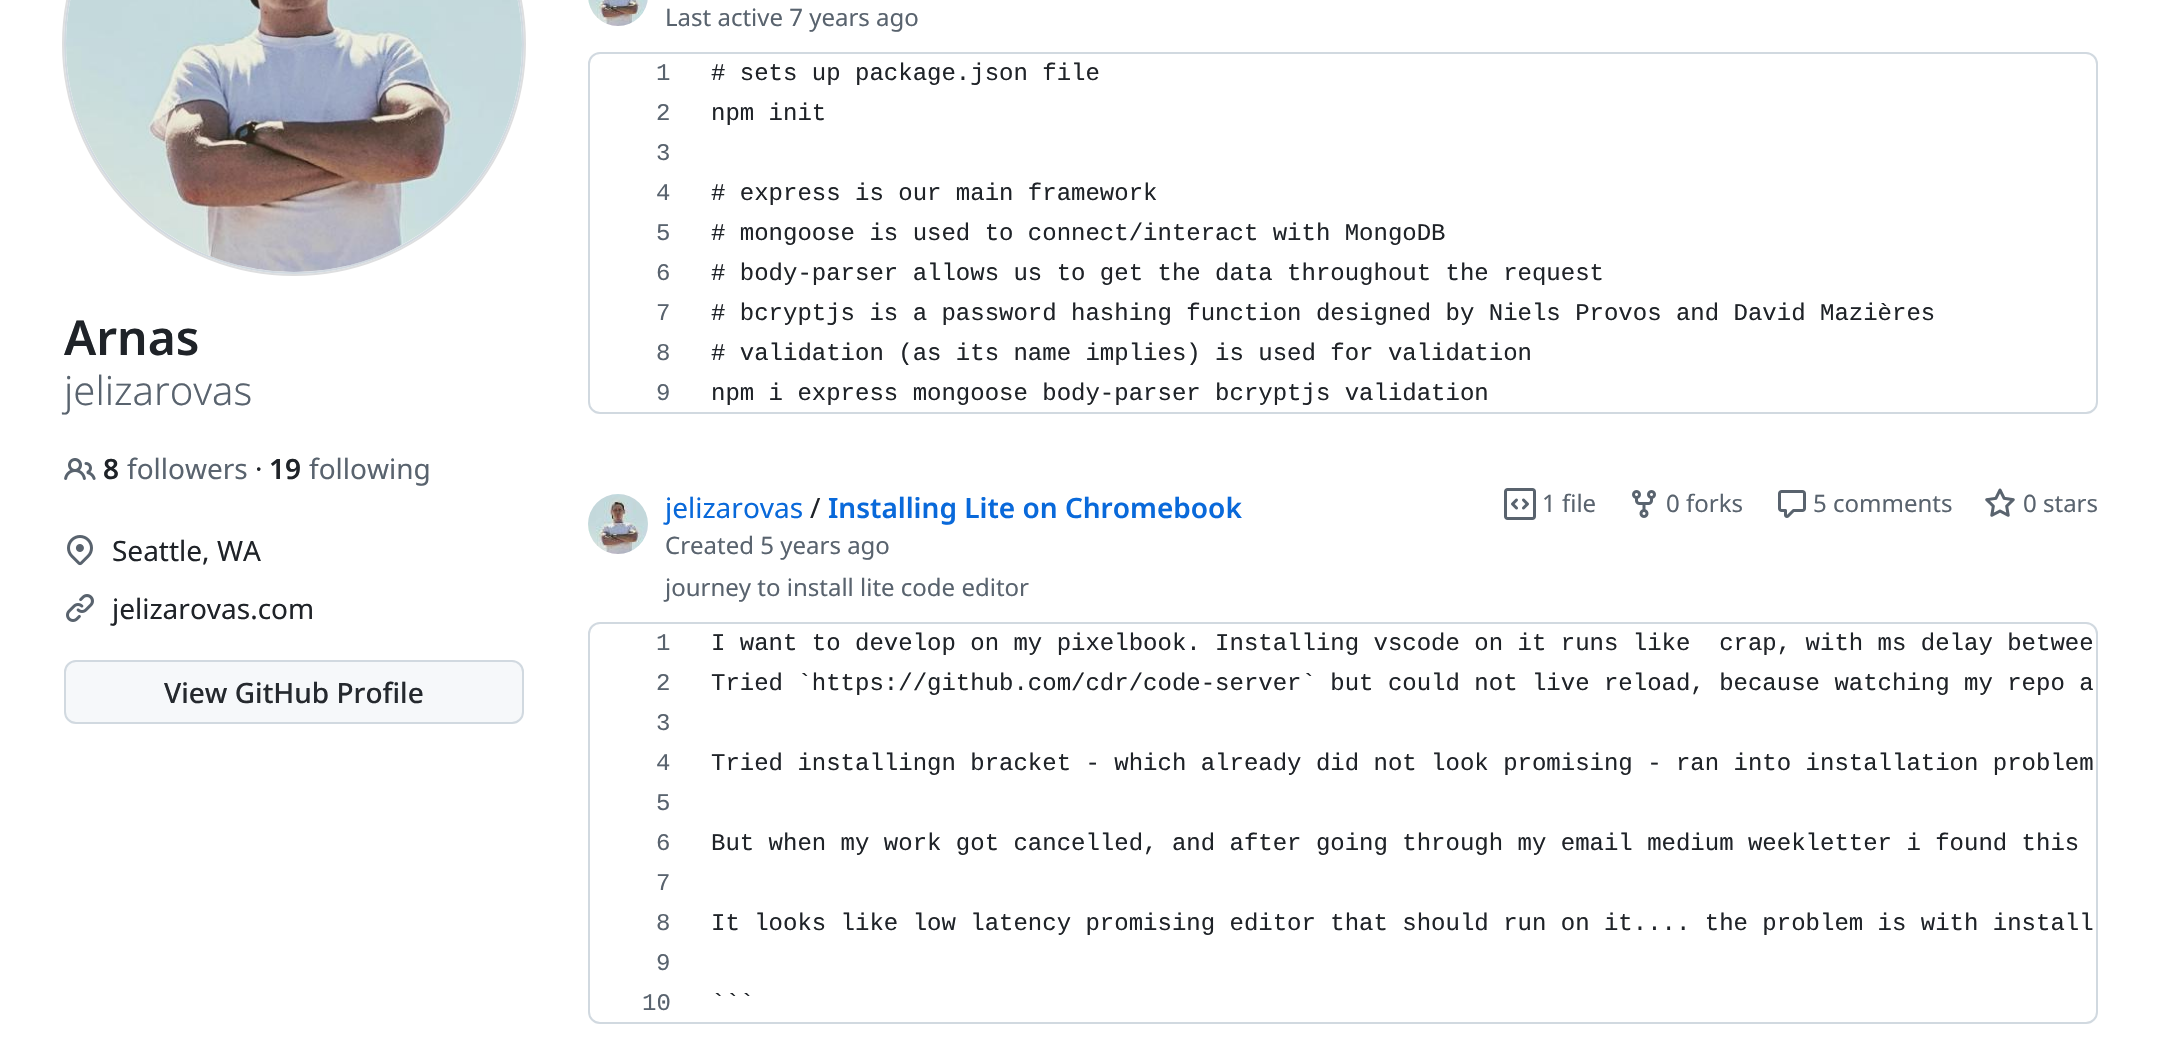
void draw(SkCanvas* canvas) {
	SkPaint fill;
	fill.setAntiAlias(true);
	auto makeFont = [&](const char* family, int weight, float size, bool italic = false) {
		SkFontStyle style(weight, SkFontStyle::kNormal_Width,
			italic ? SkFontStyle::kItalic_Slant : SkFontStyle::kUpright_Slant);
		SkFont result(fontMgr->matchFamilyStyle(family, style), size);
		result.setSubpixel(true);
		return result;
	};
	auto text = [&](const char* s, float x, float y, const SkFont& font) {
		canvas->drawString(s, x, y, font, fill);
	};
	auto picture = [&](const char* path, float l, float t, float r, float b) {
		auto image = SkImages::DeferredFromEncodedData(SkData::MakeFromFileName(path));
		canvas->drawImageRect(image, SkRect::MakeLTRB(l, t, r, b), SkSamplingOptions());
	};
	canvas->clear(0xFFFFFFFF);
	fill.setStyle(SkPaint::kStroke_Style);
	fill.setStrokeWidth(2);
	fill.setColor(0xFFDDDEDF);
	canvas->drawCircle(294, 44, 231, fill);
	fill.setStyle(SkPaint::kFill_Style);
	fill.setColor(0xFFFFFFFF);
	canvas->drawCircle(294, 44, 229, fill);
	fill.setStyle(SkPaint::kStroke_Style);
	fill.setColor(0xFFD1D9E0);
	canvas->drawCircle(294, 44, 229, fill);
	picture("image0.png", 66, 0, 522, 272);
	picture("image1.png", 64, 458, 96, 480);
	picture("image2.png", 67, 535, 93, 566);
	picture("image3.png", 66, 594, 94, 622);
	fill.setStyle(SkPaint::kFill_Style);
	fill.setColor(0xFFF6F8FA);
	canvas->drawRoundRect(SkRect::MakeLTRB(65, 661, 523, 723), 11, 11, fill);
	fill.setStyle(SkPaint::kStroke_Style);
	fill.setColor(0xFFD1D9E0);
	canvas->drawRoundRect(SkRect::MakeLTRB(65, 661, 523, 723), 11, 11, fill);
	picture("image4.png", 588, 0, 648, 26);
	canvas->drawRoundRect(SkRect::MakeLTRB(589, 53, 2097, 413), 11, 11, fill);
	picture("image5.png", 588, 494, 648, 554);
	picture("image6.png", 1504, 488, 1536, 520);
	picture("image7.png", 1632, 490, 1656, 518);
	picture("image8.png", 1778, 490, 1806, 518);
	picture("image9.png", 1985, 488, 2015, 517);
	canvas->drawRoundRect(SkRect::MakeLTRB(589, 623, 2097, 1023), 11, 11, fill);
	auto font1 = makeFont("Noto Sans", 600, 48);
	fill.setStyle(SkPaint::kFill_Style);
	fill.setColor(0xFF1F2328);
	text("Arnas", 64, 355, font1);
	auto font2 = makeFont("Noto Sans", 300, 40);
	fill.setColor(0xFF59636E);
	text("jelizarovas", 64, 405, font2);
	auto font3 = makeFont("Noto Sans", 600, 28);
	fill.setColor(0xFF1F2328);
	text("8", 103, 479, font3);
	auto font4 = makeFont("Noto Sans", 400, 28);
	fill.setColor(0xFF59636E);
	text("followers", 127, 479, font4);
	fill.setColor(0xFF1F2328);
	text("·", 255, 479, font4);
	text("19", 269, 479, font3);
	fill.setColor(0xFF59636E);
	text("following", 309, 479, font4);
	fill.setColor(0xFF1F2328);
	text("Seattle, WA", 112, 561, font4);
	text("jelizarovas.com", 112, 619, font4);
	auto font5 = makeFont("Noto Sans", 500, 28);
	fill.setColor(0xFF25292E);
	text("View GitHub Profile", 164, 703, font5);
	auto font6 = makeFont("Noto Sans", 400, 24);
	fill.setColor(0xFF59636E);
	text("Last active 7 years ago", 665, 26, font6);
	auto font7 = makeFont("Liberation Mono", 400, 24);
	text("1", 656, 80, font7);
	fill.setColor(0xFF1F2328);
	text("# sets up package.json file", 711, 80, font7);
	fill.setColor(0xFF59636E);
	text("2", 656, 120, font7);
	fill.setColor(0xFF1F2328);
	text("npm init", 711, 120, font7);
	fill.setColor(0xFF59636E);
	text("3", 656, 160, font7);
	text("4", 656, 200, font7);
	fill.setColor(0xFF1F2328);
	text("# express is our main framework", 711, 200, font7);
	fill.setColor(0xFF59636E);
	text("5", 656, 240, font7);
	fill.setColor(0xFF1F2328);
	text("# mongoose is used to connect/interact with MongoDB", 711, 240, font7);
	fill.setColor(0xFF59636E);
	text("6", 656, 280, font7);
	fill.setColor(0xFF1F2328);
	text("# body-parser allows us to get the data throughout the request", 711, 280, font7);
	fill.setColor(0xFF59636E);
	text("7", 656, 320, font7);
	fill.setColor(0xFF1F2328);
	text("# bcryptjs is a password hashing function designed by Niels Provos and David Mazières", 711, 320, font7);
	fill.setColor(0xFF59636E);
	text("8", 656, 360, font7);
	fill.setColor(0xFF1F2328);
	text("# validation (as its name implies) is used for validation", 711, 360, font7);
	fill.setColor(0xFF59636E);
	text("9", 656, 400, font7);
	fill.setColor(0xFF1F2328);
	text("npm i express mongoose body-parser bcryptjs validation", 711, 400, font7);
	fill.setColor(0xFF0969DA);
	text("jelizarovas", 665, 518, font4);
	fill.setColor(0xFF1F2328);
	text("/", 810, 518, font4);
	fill.setColor(0xFF0969DA);
	text("Installing Lite on Chromebook", 828, 518, font3);
	fill.setColor(0xFF59636E);
	text("Created 5 years ago", 665, 554, font6);
	text("journey to install lite code editor", 665, 596, font6);
	text("1 file", 1542, 512, font6);
	text("0 forks", 1666, 512, font6);
	text("5 comments", 1813, 512, font6);
	text("0 stars", 2023, 512, font6);
	text("1", 656, 650, font7);
	fill.setColor(0xFF1F2328);
	text("I want to develop on my pixelbook. Installing vscode on it runs like  crap, with ms delay betwee", 711, 650, font7);
	fill.setColor(0xFF59636E);
	text("2", 656, 690, font7);
	fill.setColor(0xFF1F2328);
	text("Tried `https://github.com/cdr/code-server` but could not live reload, because watching my repo a", 711, 690, font7);
	fill.setColor(0xFF59636E);
	text("3", 656, 730, font7);
	text("4", 656, 770, font7);
	fill.setColor(0xFF1F2328);
	text("Tried installingn bracket - which already did not look promising - ran into installation problem", 711, 770, font7);
	fill.setColor(0xFF59636E);
	text("5", 656, 810, font7);
	text("6", 656, 850, font7);
	fill.setColor(0xFF1F2328);
	text("But when my work got cancelled, and after going through my email medium weekletter i found this", 711, 850, font7);
	fill.setColor(0xFF59636E);
	text("7", 656, 890, font7);
	text("8", 656, 930, font7);
	fill.setColor(0xFF1F2328);
	text("It looks like low latency promising editor that should run on it.... the problem is with install", 711, 930, font7);
	fill.setColor(0xFF59636E);
	text("9", 656, 970, font7);
	text("10", 642, 1010, font7);
	fill.setColor(0xFF1F2328);
	text("```", 711, 1010, font7);
}
